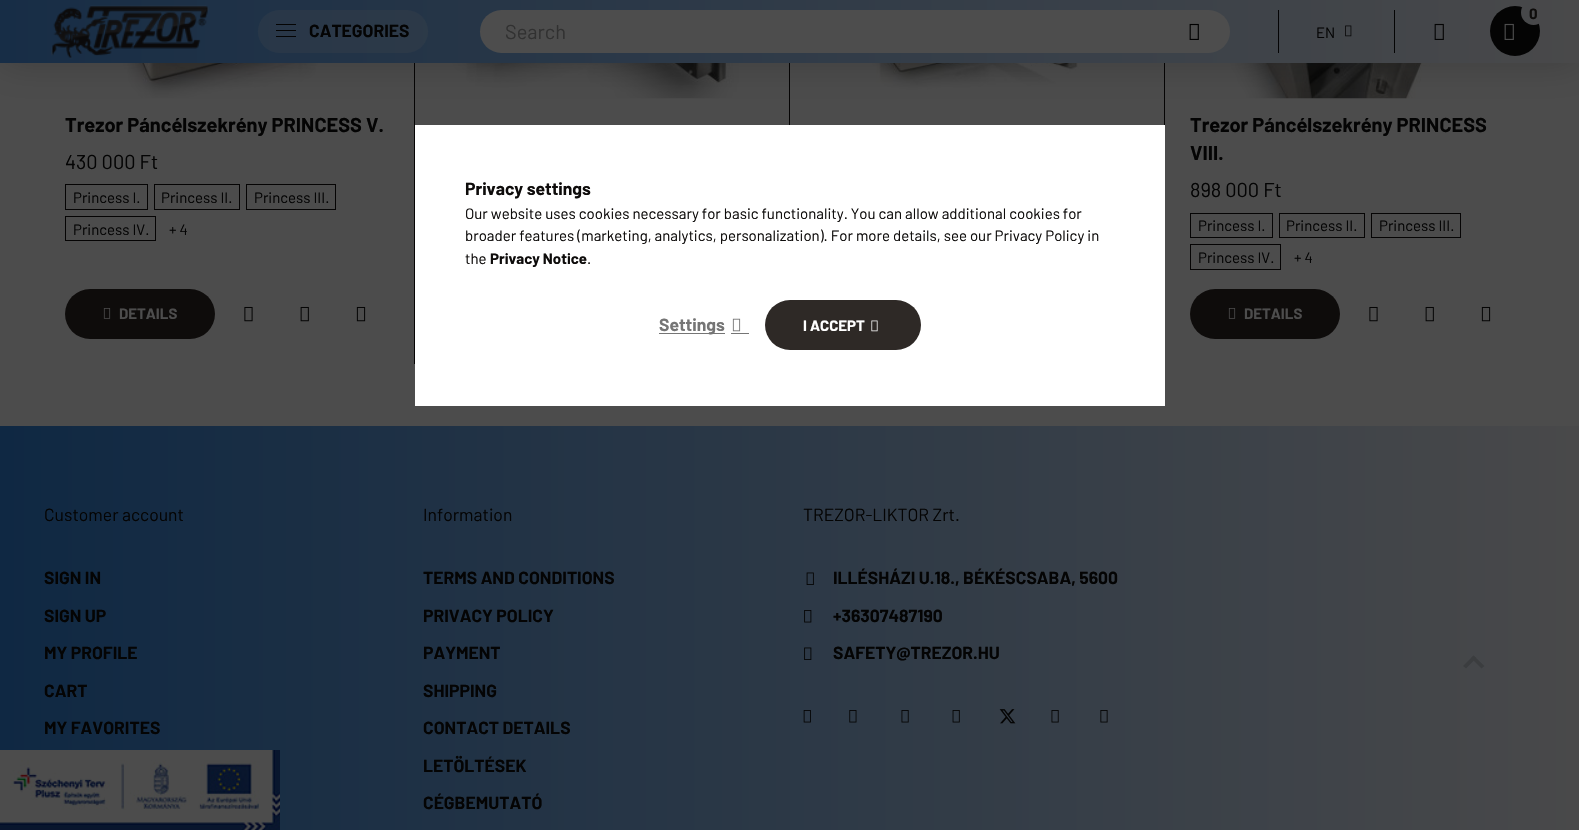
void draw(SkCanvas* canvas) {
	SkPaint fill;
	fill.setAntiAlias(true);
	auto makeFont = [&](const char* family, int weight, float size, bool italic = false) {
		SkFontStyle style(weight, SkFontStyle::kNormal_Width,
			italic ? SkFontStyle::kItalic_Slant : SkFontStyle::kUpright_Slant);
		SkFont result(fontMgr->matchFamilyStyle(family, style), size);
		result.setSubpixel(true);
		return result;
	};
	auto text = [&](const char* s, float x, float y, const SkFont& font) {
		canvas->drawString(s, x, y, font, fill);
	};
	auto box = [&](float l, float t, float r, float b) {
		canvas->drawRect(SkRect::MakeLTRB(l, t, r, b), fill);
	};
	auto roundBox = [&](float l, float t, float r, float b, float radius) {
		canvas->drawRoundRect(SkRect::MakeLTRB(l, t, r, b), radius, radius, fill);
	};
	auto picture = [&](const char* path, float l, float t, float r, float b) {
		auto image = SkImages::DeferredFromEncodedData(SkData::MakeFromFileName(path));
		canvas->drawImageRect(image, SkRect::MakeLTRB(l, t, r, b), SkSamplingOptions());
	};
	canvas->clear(0xFF4C4C4C);
	picture("image5.png", 439, 63, 739, 99);
	fill.setColor(0xFF050404);
	box(789, 63, 790, 125);
	picture("image6.png", 867, 63, 1081, 90);
	box(1164, 63, 1165, 125);
	picture("image7.png", 116, 63, 341, 98);
	box(414, 63, 415, 364);
	picture("image12.png", 1230, 63, 1452, 99);
	fill.setColor(0x33000000);
	fill.setMaskFilter(SkMaskFilter::MakeBlur(kNormal_SkBlurStyle, 19));
	canvas->drawRect(SkRect::MakeLTRB(0, 0, 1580, 63), fill);
	fill.setMaskFilter(nullptr);
	{
		const SkColor colors[] = {0xFF172D46, 0xFF49494A};
		const float stops[] = {0, 1};
		const SkPoint ends[] = {{0, 415}, {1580, 415}};
		fill.setShader(SkGradientShader::MakeLinear(ends, colors, stops, 2, SkTileMode::kClamp));
		fill.setAlpha(255);
	}
	box(0, 0, 1579, 63);
	picture("image0.png", 51, 5, 209, 59);
	fill.setShader(nullptr);
	fill.setColor(0x334D4D4D);
	roundBox(258, 10, 428, 53, 21.5f);
	fill.setColor(0xFF040404);
	box(276, 24, 296, 25);
	box(276, 30, 296, 31);
	box(276, 36, 296, 37);
	canvas->drawCircle(1515, 31, 25, fill);
	{
		const SkColor colors[] = {0xFF172D46, 0xFF49494A};
		const float stops[] = {0, 1};
		const SkPoint ends[] = {{0, 415}, {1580, 415}};
		fill.setShader(SkGradientShader::MakeLinear(ends, colors, stops, 2, SkTileMode::kClamp));
		fill.setAlpha(255);
	}
	canvas->drawCircle(1533.5f, 12.5f, 12.5f, fill);
	picture("image1.png", 1504, 23, 1514, 40);
	fill.setShader(nullptr);
	fill.setColor(0xFF4D4D4D);
	roundBox(480, 10, 1230, 53, 21.5f);
	picture("image2.png", 1189, 23, 1199, 40);
	fill.setColor(0xFF040404);
	box(1394, 10, 1395, 53);
	box(1278, 10, 1279, 53);
	picture("image3.png", 1345, 25, 1352, 37);
	picture("image4.png", 1434, 23, 1444, 40);
	fill.setStyle(SkPaint::kStroke_Style);
	fill.setStrokeWidth(1);
	fill.setColor(0xFF050404);
	canvas->drawRect(SkRect::MakeLTRB(65.5f, 184.5f, 147.5f, 209.5f), fill);
	canvas->drawRect(SkRect::MakeLTRB(154.5f, 184.5f, 239.5f, 209.5f), fill);
	canvas->drawRect(SkRect::MakeLTRB(246.5f, 184.5f, 335.5f, 209.5f), fill);
	canvas->drawRect(SkRect::MakeLTRB(65.5f, 216.5f, 155.5f, 240.5f), fill);
	fill.setStyle(SkPaint::kFill_Style);
	{
		const SkColor colors[] = {0xFF0E0C0B, 0xFF202020};
		const float stops[] = {0.33f, 0.67f};
		const SkPoint ends[] = {{65, 314}, {515, 314}};
		fill.setShader(SkGradientShader::MakeLinear(ends, colors, stops, 2, SkTileMode::kClamp));
		fill.setAlpha(255);
	}
	roundBox(65, 289, 215, 339, 25);
	picture("image8.png", 103, 308, 111, 319);
	picture("image9.png", 244, 306, 253, 322);
	picture("image10.png", 300, 306, 309, 322);
	picture("image11.png", 356, 306, 366, 322);
	fill.setStyle(SkPaint::kStroke_Style);
	fill.setShader(nullptr);
	fill.setColor(0xFF050404);
	canvas->drawRect(SkRect::MakeLTRB(1190.5f, 213.5f, 1272.5f, 237.5f), fill);
	canvas->drawRect(SkRect::MakeLTRB(1279.5f, 213.5f, 1364.5f, 237.5f), fill);
	canvas->drawRect(SkRect::MakeLTRB(1371.5f, 213.5f, 1460.5f, 237.5f), fill);
	canvas->drawRect(SkRect::MakeLTRB(1190.5f, 244.5f, 1280.5f, 269.5f), fill);
	fill.setStyle(SkPaint::kFill_Style);
	{
		const SkColor colors[] = {0xFF0E0C0B, 0xFF202020};
		const float stops[] = {0.33f, 0.67f};
		const SkPoint ends[] = {{1190, 314}, {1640, 314}};
		fill.setShader(SkGradientShader::MakeLinear(ends, colors, stops, 2, SkTileMode::kClamp));
		fill.setAlpha(255);
	}
	roundBox(1190, 289, 1340, 339, 25);
	picture("image8.png", 1228, 308, 1236, 319);
	picture("image9.png", 1369, 306, 1378, 322);
	picture("image10.png", 1425, 306, 1434, 322);
	picture("image11.png", 1481, 306, 1491, 322);
	{
		const SkColor colors[] = {0xFF0F2843, 0xFF49494A};
		const float stops[] = {0, 1};
		const SkPoint ends[] = {{0, 415}, {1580, 415}};
		fill.setShader(SkGradientShader::MakeLinear(ends, colors, stops, 2, SkTileMode::kClamp));
		fill.setAlpha(255);
	}
	box(0, 426, 1579, 830);
	picture("image13.png", 806, 572, 814, 585);
	picture("image14.png", 804, 610, 812, 623);
	picture("image15.png", 804, 647, 812, 660);
	picture("image16.png", 803, 710, 811, 723);
	picture("image17.png", 849, 710, 857, 723);
	picture("image18.png", 901, 710, 909, 723);
	picture("image19.png", 952, 710, 960, 723);
	picture("image20.png", 999, 709, 1016, 724);
	picture("image21.png", 1051, 710, 1059, 723);
	picture("image22.png", 1100, 710, 1108, 723);
	fill.setShader(nullptr);
	fill.setColor(0xFFFFFFFF);
	box(415, 125, 1165, 406);
	fill.setColor(0xFF757575);
	box(659, 333, 725, 334);
	picture("image23.png", 732, 318, 741, 332);
	box(731, 333, 749, 334);
	{
		const SkColor colors[] = {0xFF2E2926, 0xFF6B6B6B};
		const float stops[] = {0.33f, 0.67f};
		const SkPoint ends[] = {{765, 325}, {1234, 325}};
		fill.setShader(SkGradientShader::MakeLinear(ends, colors, stops, 2, SkTileMode::kClamp));
		fill.setAlpha(255);
	}
	roundBox(765, 300, 921, 350, 25);
	picture("image24.png", 871, 320, 878, 332);
	fill.setShader(nullptr);
	fill.setColor(0xFF3B3D3F);
	canvas->drawPath(SkPathBuilder().moveTo(1481.5f, 668.5f).lineTo(1471, 658).lineTo(1473.5f, 655.5f).lineTo(1484.5f, 666).close().detach(), fill);
	canvas->drawPath(SkPathBuilder().moveTo(1463, 666).lineTo(1473.5f, 655.5f).lineTo(1476.5f, 658).lineTo(1466, 668.5f).close().detach(), fill);
	picture("image25.png", 0, 750, 280, 830);
	auto font1 = makeFont("Barlow", 700, 17.5f);
	fill.setColor(0xFF040404);
	text("CATEGORIES", 309, 37, font1);
	auto font2 = makeFont("Barlow", 700, 15);
	fill.setColor(0xFF0E0C0B);
	text("0", 1529, 19, font2);
	auto font3 = makeFont("Barlow", 400, 20);
	fill.setColor(0xFF313131);
	text("Search", 505, 39, font3);
	auto font4 = makeFont("Barlow", 400, 15);
	fill.setColor(0xFF040404);
	text("EN", 1316, 38, font4);
	auto font5 = makeFont("Barlow", 700, 20);
	text("Trezor Páncélszekrény PRINCESS V.", 65, 132, font5);
	text("430 000 Ft", 65, 169, font3);
	text("Princess I.", 73, 203, font4);
	text("Princess II.", 161, 203, font4);
	text("Princess III.", 254, 203, font4);
	text("Princess IV.", 73, 235, font4);
	text("+ 4", 169, 235, font4);
	fill.setColor(0xFF4D4D4D);
	text("DETAILS", 119, 319, font2);
	fill.setColor(0xFF040404);
	text("Trezor Páncélszekrény PRINCESS", 1190, 132, font5);
	text("VIII.", 1190, 160, font5);
	text("898 000 Ft", 1190, 197, font3);
	text("Princess I.", 1198, 231, font4);
	text("Princess II.", 1286, 231, font4);
	text("Princess III.", 1379, 231, font4);
	text("Princess IV.", 1198, 263, font4);
	text("+ 4", 1294, 263, font4);
	fill.setColor(0xFF4D4D4D);
	text("DETAILS", 1244, 319, font2);
	auto font6 = makeFont("Barlow", 400, 17.5f);
	fill.setColor(0xFF040404);
	text("Customer account", 44, 521, font6);
	text("SIGN IN", 44, 584, font1);
	text("SIGN UP", 44, 622, font1);
	text("MY PROFILE", 44, 659, font1);
	text("CART", 44, 697, font1);
	text("MY FAVORITES", 44, 734, font1);
	text("Information", 423, 521, font6);
	text("TERMS AND CONDITIONS", 423, 584, font1);
	text("PRIVACY POLICY", 423, 622, font1);
	text("PAYMENT", 423, 659, font1);
	text("SHIPPING", 423, 697, font1);
	text("CONTACT DETAILS", 423, 734, font1);
	text("LETÖLTÉSEK", 423, 772, font1);
	text("CÉGBEMUTATÓ", 423, 809, font1);
	text("TREZOR-LIKTOR Zrt.", 803, 521, font6);
	text("ILLÉSHÁZI U.18., BÉKÉSCSABA, 5600", 833, 584, font1);
	text("+36307487190", 833, 622, font1);
	text("SAFETY@TREZOR.HU", 833, 659, font1);
	fill.setColor(0xFF0E0C0B);
	text("Privacy settings", 465, 195, font1);
	text("Our website uses cookies necessary for basic functionality. You can allow additional cookies for", 465, 219, font4);
	text("broader features (marketing, analytics, personalization). For more details, see our Privacy Policy in", 465, 241, font4);
	text("the", 465, 264, font4);
	text("Privacy Notice", 490, 264, font2);
	text(".", 587, 264, font4);
	fill.setColor(0xFF757575);
	text("Settings", 659, 331, font1);
	fill.setColor(0xFFFFFFFF);
	text("I ACCEPT", 803, 331, font2);
}
